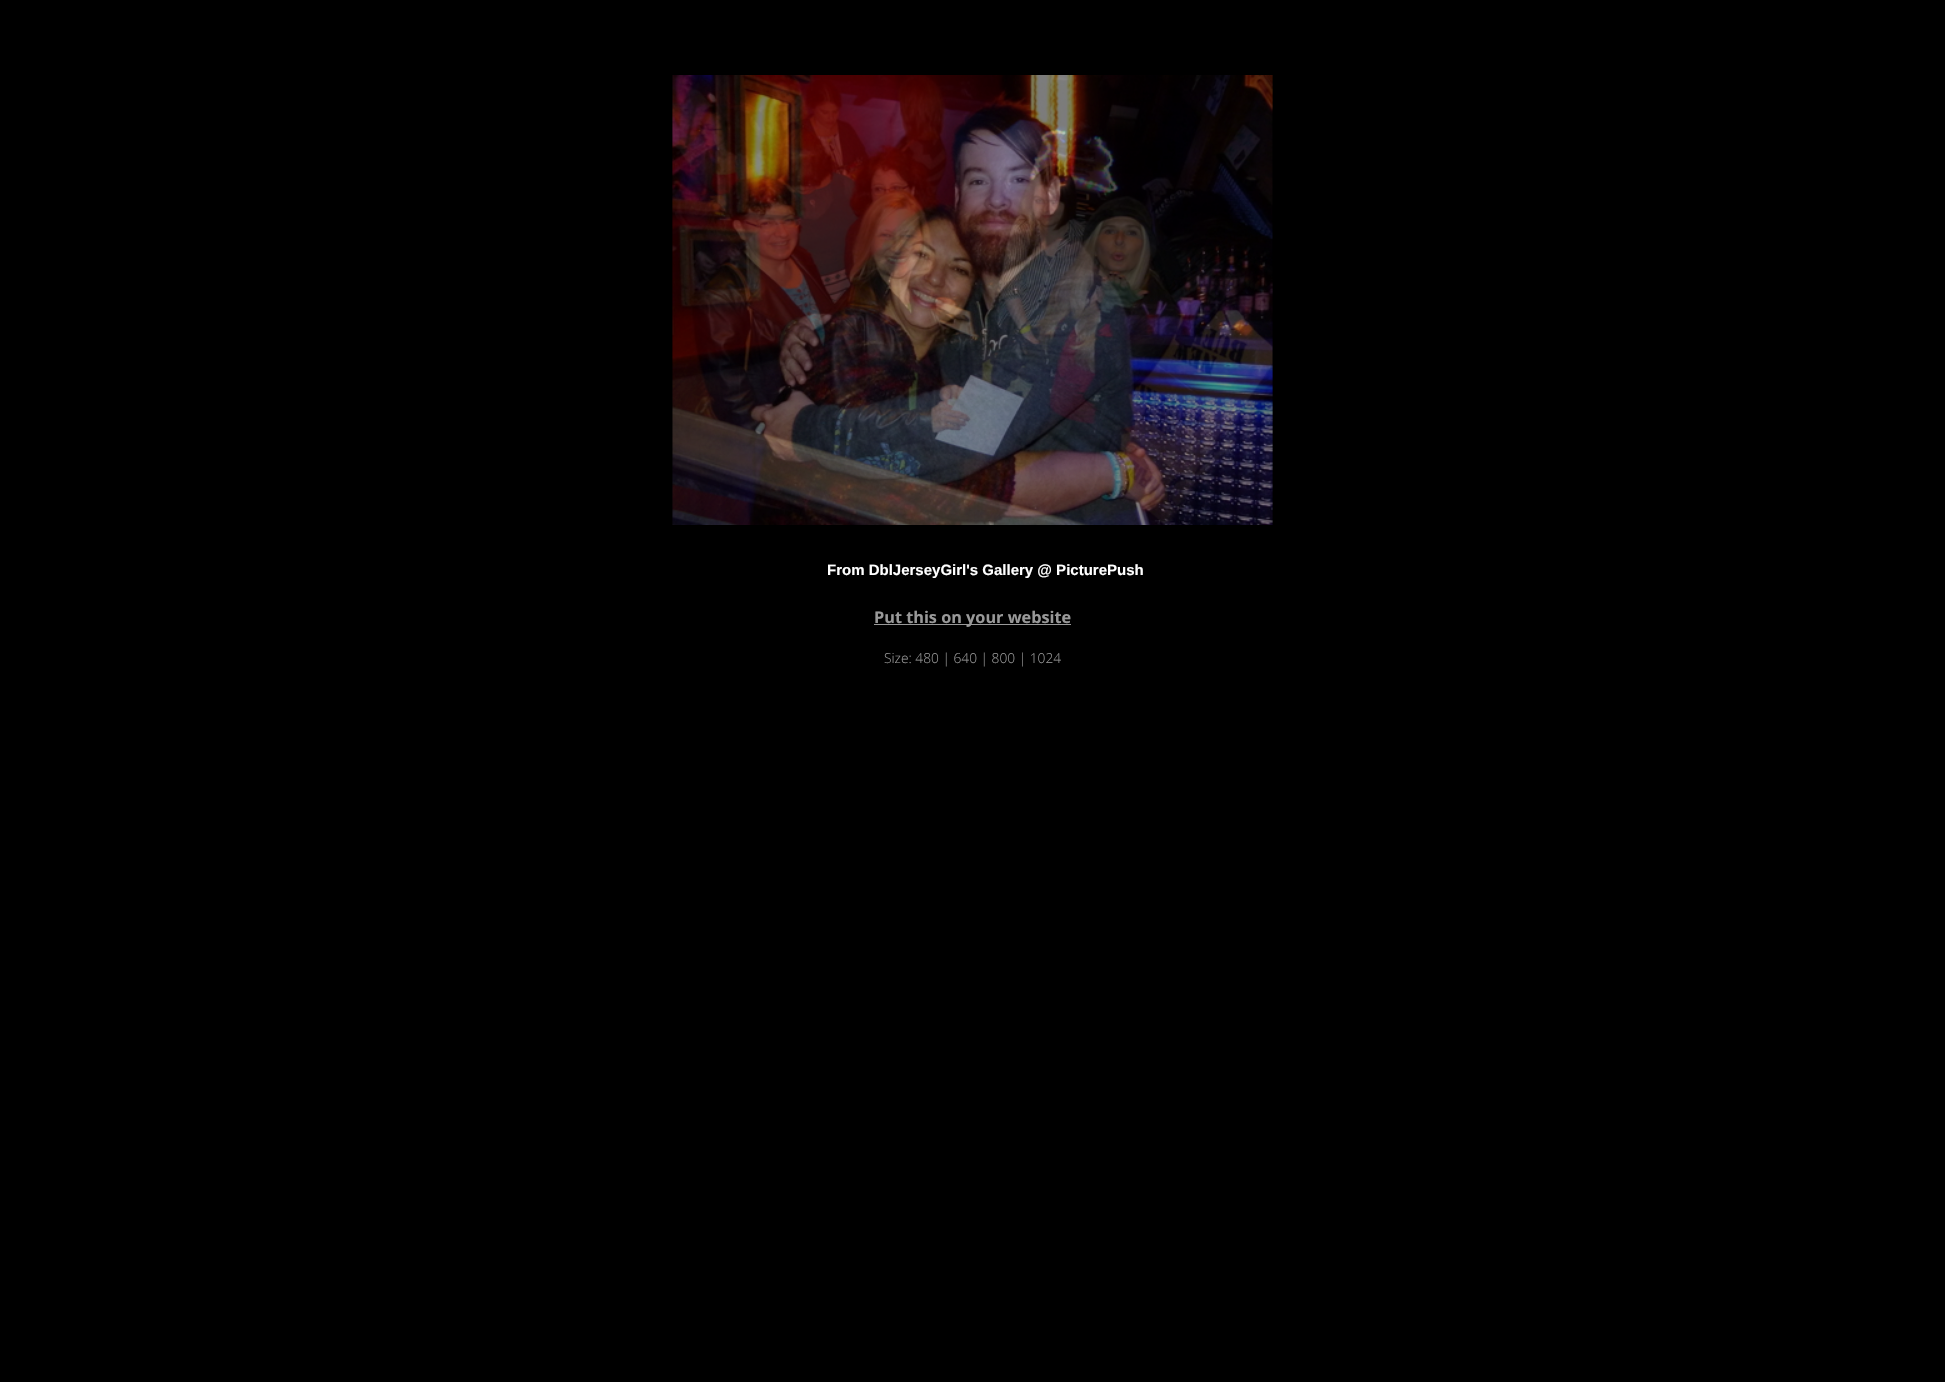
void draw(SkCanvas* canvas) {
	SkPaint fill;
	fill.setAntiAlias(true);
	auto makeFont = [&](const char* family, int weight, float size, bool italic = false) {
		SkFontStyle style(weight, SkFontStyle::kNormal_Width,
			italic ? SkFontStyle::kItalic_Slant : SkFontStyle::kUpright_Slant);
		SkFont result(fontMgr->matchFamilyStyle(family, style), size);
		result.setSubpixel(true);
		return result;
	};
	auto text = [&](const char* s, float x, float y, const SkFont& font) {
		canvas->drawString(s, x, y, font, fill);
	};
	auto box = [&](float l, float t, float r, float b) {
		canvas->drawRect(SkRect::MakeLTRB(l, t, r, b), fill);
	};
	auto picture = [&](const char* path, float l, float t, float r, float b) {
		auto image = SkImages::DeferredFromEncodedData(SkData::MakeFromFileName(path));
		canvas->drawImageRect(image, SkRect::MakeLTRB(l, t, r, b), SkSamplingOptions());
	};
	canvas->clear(0xFF000000);
	picture("image0.png", 672, 75, 1273, 525);
	picture("image1.png", 672, 75, 1273, 525);
	fill.setColor(0xFF999999);
	box(874, 624, 1071, 625);
	auto font1 = makeFont("Liberation Sans", 700, 15);
	fill.setColor(0xFFFFFFFF);
	text("From DblJerseyGirl's Gallery @ PicturePush", 827, 575, font1);
	auto font2 = makeFont("Open Sans", 700, 16.25f);
	fill.setColor(0xFF999999);
	text("Put this on your website", 874, 623, font2);
	auto font3 = makeFont("Open Sans", 300, 13.75f);
	text("Size: 480 | 640 | 800 | 1024", 884, 663, font3);
}
